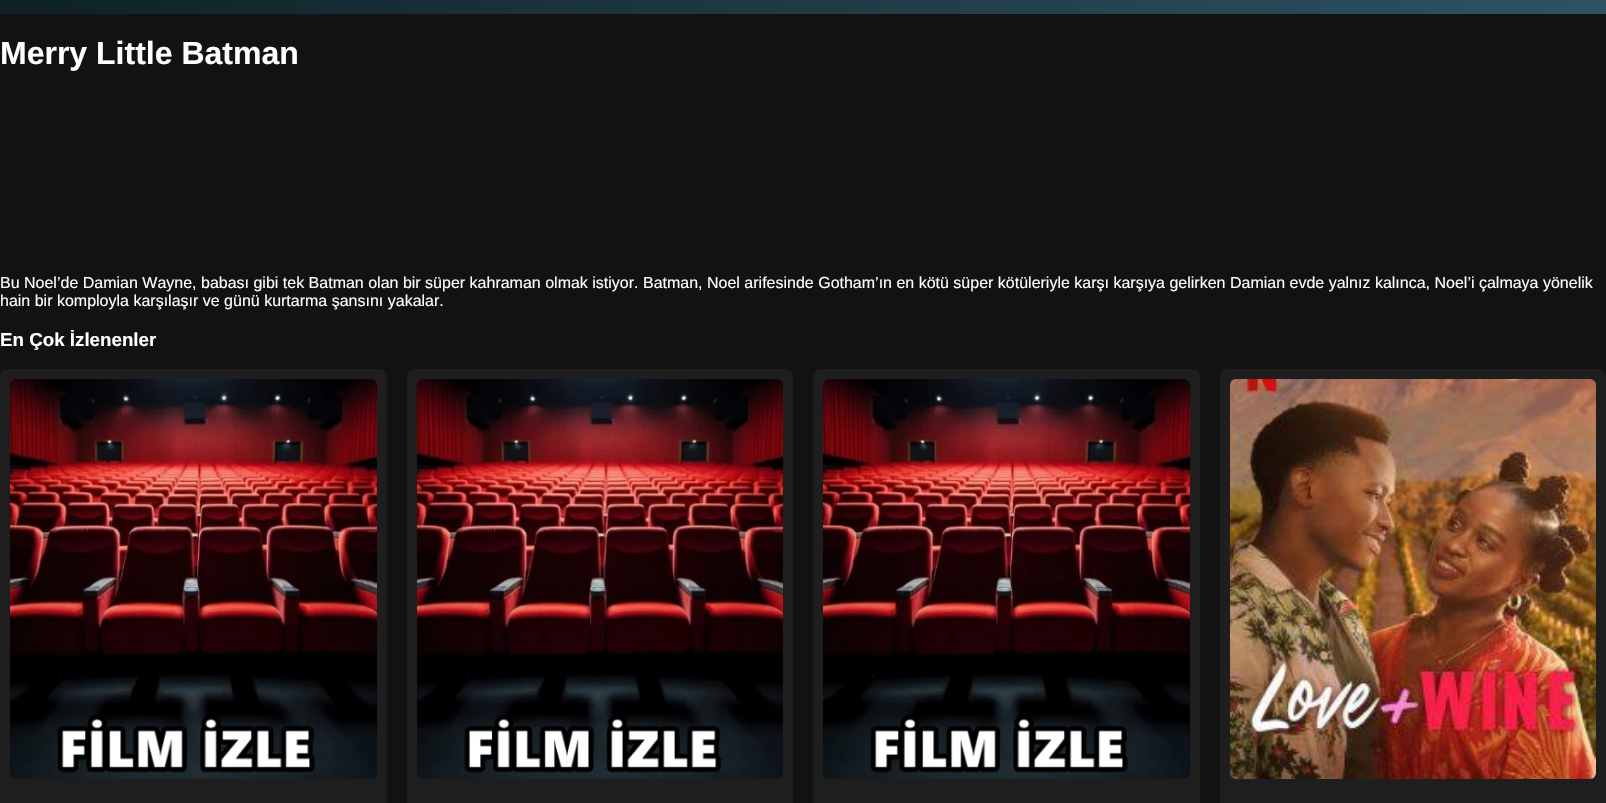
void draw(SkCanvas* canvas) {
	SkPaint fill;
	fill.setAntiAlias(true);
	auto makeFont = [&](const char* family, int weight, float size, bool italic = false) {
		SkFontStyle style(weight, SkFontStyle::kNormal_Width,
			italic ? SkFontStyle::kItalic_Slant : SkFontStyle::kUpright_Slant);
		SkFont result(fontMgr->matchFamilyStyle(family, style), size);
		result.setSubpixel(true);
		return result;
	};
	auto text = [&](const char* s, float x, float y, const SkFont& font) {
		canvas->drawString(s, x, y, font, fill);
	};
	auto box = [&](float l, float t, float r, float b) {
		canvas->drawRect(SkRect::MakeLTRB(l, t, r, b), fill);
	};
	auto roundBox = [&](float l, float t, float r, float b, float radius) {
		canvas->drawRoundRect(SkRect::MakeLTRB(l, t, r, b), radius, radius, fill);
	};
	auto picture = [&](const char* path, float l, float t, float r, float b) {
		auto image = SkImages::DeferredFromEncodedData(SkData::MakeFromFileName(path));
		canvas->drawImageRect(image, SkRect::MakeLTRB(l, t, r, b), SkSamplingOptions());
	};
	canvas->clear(0xFF121212);
	{
		const SkColor colors[] = {0xFF0F2027, 0xFF203A43, 0xFF2C5364};
		const float stops[] = {0, 0.5f, 1};
		const SkPoint ends[] = {{0, -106}, {1606, -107}};
		fill.setShader(SkGradientShader::MakeLinear(ends, colors, stops, 3, SkTileMode::kClamp));
		fill.setAlpha(255);
	}
	box(0, 0, 1606, 14);
	fill.setShader(nullptr);
	fill.setColor(0xFF1E1E1E);
	roundBox(0, 369, 387, 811, 8);
	picture("image0.png", 10, 379, 377, 779);
	roundBox(407, 369, 793, 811, 8);
	picture("image1.png", 417, 379, 783, 779);
	roundBox(813, 369, 1200, 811, 8);
	picture("image0.png", 823, 379, 1190, 779);
	roundBox(1220, 369, 1606, 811, 8);
	picture("image2.png", 1230, 379, 1596, 779);
	auto font1 = makeFont("Liberation Sans", 700, 32);
	fill.setColor(0xFFFFFFFF);
	text("Merry Little Batman", 0, 64, font1);
	auto font2 = makeFont("Liberation Sans", 400, 16);
	text("Bu Noel’de Damian Wayne, babası gibi tek Batman olan bir süper kahraman olmak istiyor. Batman, Noel arifesinde Gotham’ın en kötü süper kötüleriyle karşı karşıya gelirken Damian evde yalnız kalınca, Noel’i çalmaya yönelik", 0, 288, font2);
	text("hain bir komployla karşılaşır ve günü kurtarma şansını yakalar.", 0, 306, font2);
	auto font3 = makeFont("Liberation Sans", 700, 18.75f);
	text("En Çok İzlenenler", 0, 346, font3);
}
